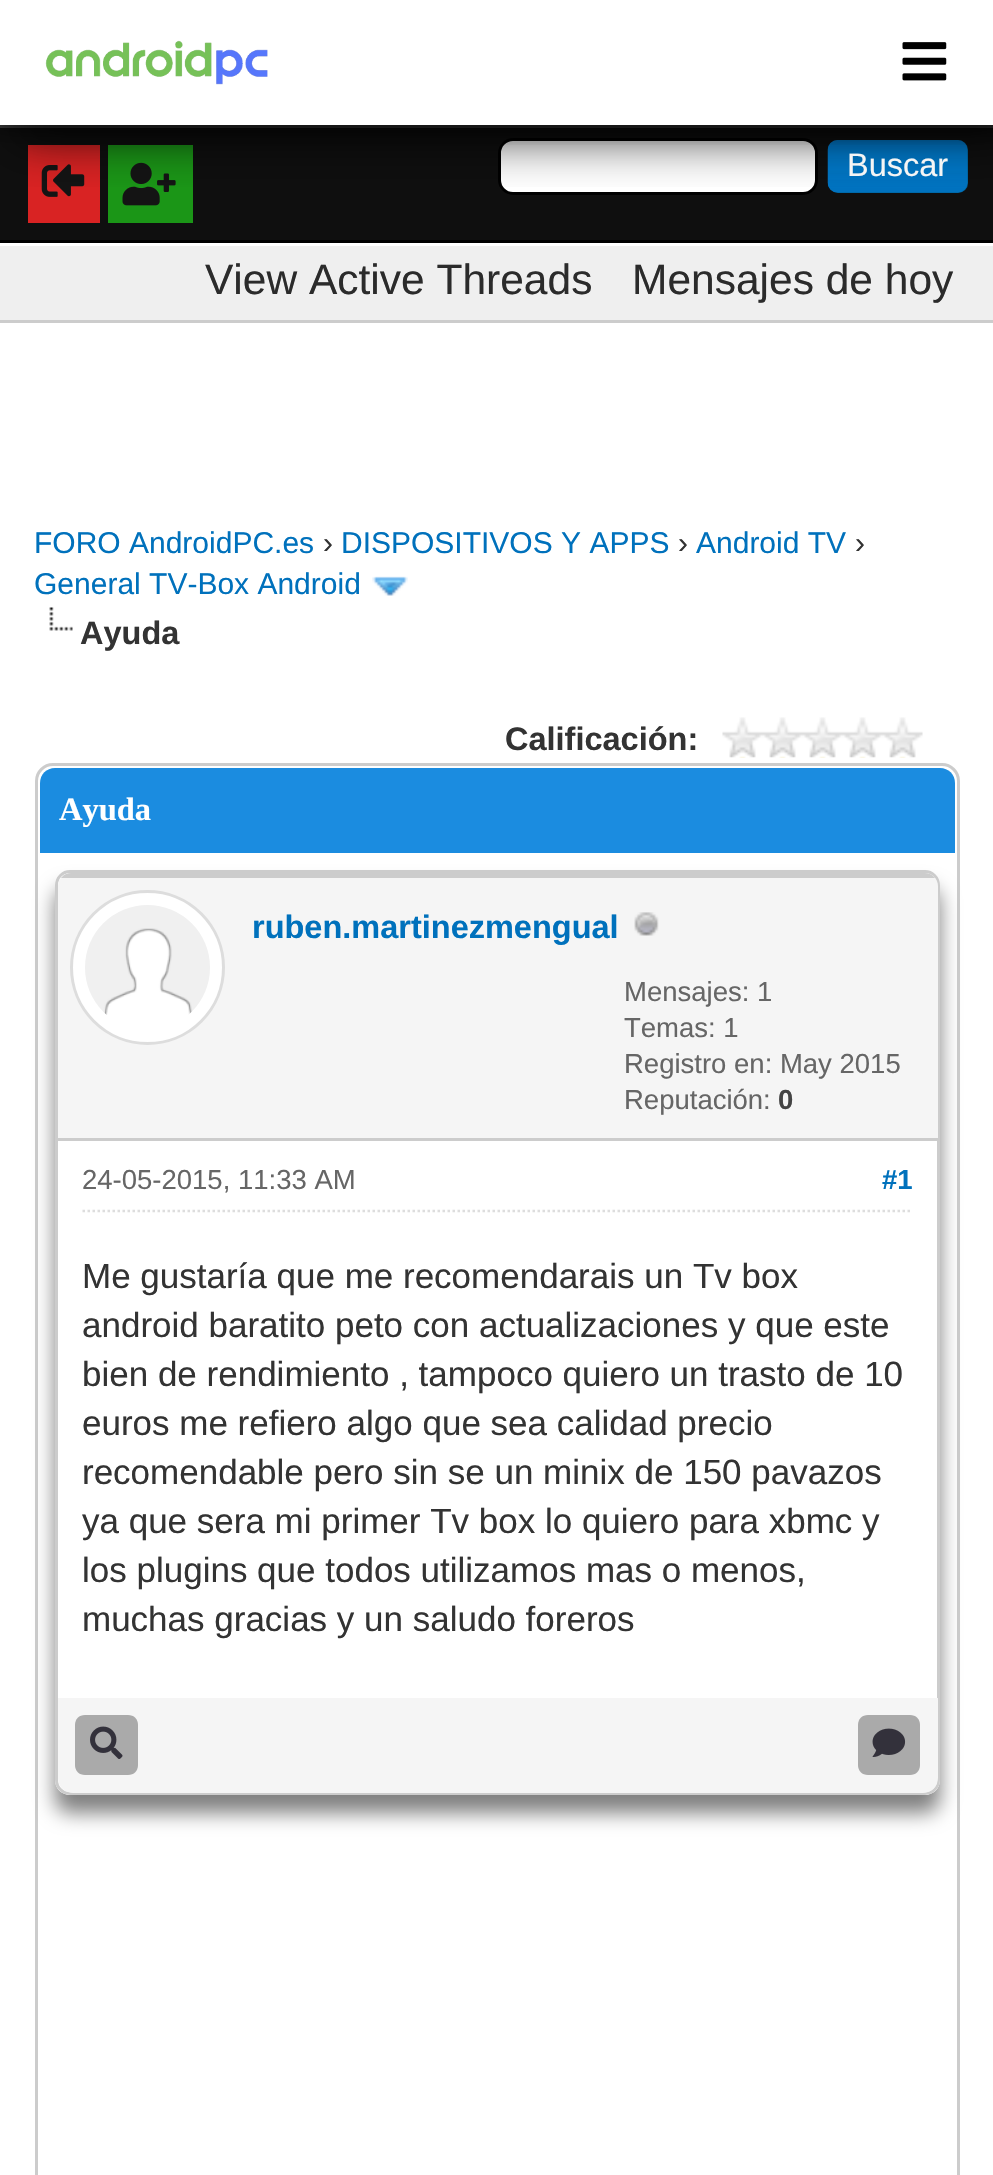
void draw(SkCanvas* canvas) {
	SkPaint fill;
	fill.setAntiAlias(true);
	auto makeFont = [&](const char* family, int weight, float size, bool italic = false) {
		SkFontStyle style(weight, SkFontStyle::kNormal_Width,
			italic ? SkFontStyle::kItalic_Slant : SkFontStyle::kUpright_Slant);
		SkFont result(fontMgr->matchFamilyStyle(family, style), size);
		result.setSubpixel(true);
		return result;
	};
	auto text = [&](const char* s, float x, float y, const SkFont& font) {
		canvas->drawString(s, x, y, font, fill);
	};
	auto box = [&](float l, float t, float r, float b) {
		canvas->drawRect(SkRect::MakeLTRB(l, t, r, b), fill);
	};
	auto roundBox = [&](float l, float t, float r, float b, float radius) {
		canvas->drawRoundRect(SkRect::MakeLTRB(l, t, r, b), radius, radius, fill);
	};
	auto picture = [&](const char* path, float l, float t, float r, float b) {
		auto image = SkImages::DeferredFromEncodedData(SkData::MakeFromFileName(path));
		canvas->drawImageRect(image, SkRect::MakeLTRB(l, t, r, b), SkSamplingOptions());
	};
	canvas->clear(0xFFFFFFFF);
	fill.setColor(0xFF0F0F0F);
	box(0, 128, 993, 240);
	fill.setColor(0xFF444444);
	box(0, 125, 993, 128);
	fill.setColor(0xFFD92323);
	box(28, 145, 100, 223);
	fill.setColor(0xFF1B9617);
	box(108, 145, 193, 223);
	fill.setColor(0xFFFFFFFF);
	canvas->drawRoundRect(SkRect::MakeLTRB(499.5f, 139.5f, 816.5f, 193.5f), 13.5f, 13.5f, fill);
	fill.setStyle(SkPaint::kStroke_Style);
	fill.setStrokeWidth(3);
	fill.setColor(0xFF000000);
	canvas->drawRoundRect(SkRect::MakeLTRB(499.5f, 139.5f, 816.5f, 193.5f), 13.5f, 13.5f, fill);
	fill.setStyle(SkPaint::kFill_Style);
	fill.setColor(0xFF0066A2);
	roundBox(828, 140, 968, 193, 10);
	picture("image4.png", 827, 140, 968, 193);
	canvas->save();
	canvas->clipRect(SkRect::MakeLTRB(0, 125, 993, 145));
	fill.setColor(0x80000000);
	fill.setMaskFilter(SkMaskFilter::MakeBlur(kNormal_SkBlurStyle, 10));
	canvas->drawRect(SkRect::MakeLTRB(-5, -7, 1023, 128), fill);
	fill.setMaskFilter(nullptr);
	canvas->restore();
	picture("image2.png", 41, 164, 85, 197);
	picture("image3.png", 122, 162, 176, 206);
	canvas->save();
	canvas->clipRect(SkRect::MakeLTRB(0, 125, 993, 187));
	fill.setColor(0xC9000000);
	fill.setMaskFilter(SkMaskFilter::MakeBlur(kNormal_SkBlurStyle, 25));
	canvas->drawRect(SkRect::MakeLTRB(13, 38, 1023, 138), fill);
	fill.setMaskFilter(nullptr);
	canvas->restore();
	picture("image0.png", 45, 40, 268, 85);
	picture("image1.png", 902, 42, 947, 81);
	fill.setColor(0xFF000000);
	box(0, 240, 993, 243);
	fill.setColor(0xFFEFEFEF);
	box(0, 246, 993, 320);
	fill.setColor(0xFFCCCCCC);
	box(0, 320, 993, 323);
	picture("image5.png", 372, 576, 408, 596);
	picture("image6.png", 49, 607, 73, 631);
	picture("image7.png", 722, 717, 923, 758);
	fill.setStyle(SkPaint::kStroke_Style);
	canvas->drawRoundRect(SkRect::MakeLTRB(36.5f, 764.5f, 958.5f, 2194.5f), 16.5f, 16.5f, fill);
	fill.setStyle(SkPaint::kFill_Style);
	fill.setColor(0xFF1B8CE0);
	canvas->drawPath(SkPathBuilder().moveTo(55, 768).lineTo(940, 768).cubicTo(948.5f, 768, 955, 774.5f, 955, 783).lineTo(955, 853).lineTo(40, 853).lineTo(40, 783).cubicTo(40, 774.5f, 46.5f, 768, 55, 768).close().detach(), fill);
	canvas->save();
	canvas->clipPath(SkPathBuilder(SkPathFillType::kEvenOdd).moveTo(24, 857).lineTo(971, 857).lineTo(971, 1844).lineTo(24, 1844).close().moveTo(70, 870).lineTo(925, 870).cubicTo(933.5f, 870, 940, 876.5f, 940, 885).lineTo(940, 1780).cubicTo(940, 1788.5f, 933.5f, 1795, 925, 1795).lineTo(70, 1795).cubicTo(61.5f, 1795, 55, 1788.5f, 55, 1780).lineTo(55, 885).cubicTo(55, 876.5f, 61.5f, 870, 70, 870).close().detach(), true);
	fill.setColor(0x80000000);
	fill.setMaskFilter(SkMaskFilter::MakeBlur(kNormal_SkBlurStyle, 10));
	canvas->drawRoundRect(SkRect::MakeLTRB(55, 888, 940, 1813), 15, 15, fill);
	fill.setMaskFilter(nullptr);
	canvas->restore();
	fill.setStyle(SkPaint::kStroke_Style);
	fill.setColor(0xFFCCCCCC);
	canvas->drawRoundRect(SkRect::MakeLTRB(56.5f, 871.5f, 938.5f, 1793.5f), 13.5f, 13.5f, fill);
	fill.setStyle(SkPaint::kFill_Style);
	fill.setColor(0xFFF5F5F5);
	canvas->drawPath(SkPathBuilder().moveTo(71, 873).lineTo(925, 873).cubicTo(932, 873, 938, 879, 938, 886).lineTo(938, 1140).lineTo(58, 1140).lineTo(58, 886).cubicTo(58, 879, 64, 873, 71, 873).close().detach(), fill);
	canvas->save();
	canvas->clipPath(SkPathBuilder().moveTo(71, 873).lineTo(925, 873).cubicTo(932, 873, 938, 879, 938, 886).lineTo(938, 1780).cubicTo(938, 1787, 932, 1793, 925, 1793).lineTo(71, 1793).cubicTo(64, 1793, 58, 1787, 58, 1780).lineTo(58, 886).cubicTo(58, 879, 64, 873, 71, 873).close().detach(), true);
	fill.setColor(0xFFCCCCCC);
	box(58, 873, 938, 878);
	canvas->restore();
	box(58, 1138, 938, 1141);
	fill.setColor(0xFFFFFFFF);
	canvas->drawCircle(147.5f, 967.5f, 76, fill);
	fill.setStyle(SkPaint::kStroke_Style);
	fill.setColor(0xFFDDDDDD);
	canvas->drawCircle(147.5f, 967.5f, 76, fill);
	picture("image8.png", 85, 905, 210, 1015);
	picture("image9.png", 634, 912, 659, 936);
	fill.setStrokeWidth(2.5f);
	fill.setPathEffect(SkDashPathEffect::Make({{2.5f, 2.5f}}, 0));
	canvas->drawPath(SkPathBuilder().moveTo(82.5f, 1211).lineTo(912.5f, 1211).detach(), fill);
	fill.setPathEffect(nullptr);
	canvas->save();
	canvas->clipPath(SkPathBuilder().moveTo(71, 873).lineTo(925, 873).cubicTo(932, 873, 938, 879, 938, 886).lineTo(938, 1780).cubicTo(938, 1787, 932, 1793, 925, 1793).lineTo(71, 1793).cubicTo(64, 1793, 58, 1787, 58, 1780).lineTo(58, 886).cubicTo(58, 879, 64, 873, 71, 873).close().detach(), true);
	fill.setStyle(SkPaint::kFill_Style);
	fill.setColor(0xFFF5F5F5);
	canvas->drawPath(SkPathBuilder().moveTo(58, 1698).lineTo(938, 1698).lineTo(938, 1778).cubicTo(938, 1786.5f, 931.5f, 1793, 923, 1793).lineTo(73, 1793).cubicTo(64.5f, 1793, 58, 1786.5f, 58, 1778).close().detach(), fill);
	canvas->restore();
	fill.setColor(0xFFAAAAAA);
	canvas->drawPath(SkPathBuilder().moveTo(85, 1715).lineTo(128, 1715).cubicTo(134, 1715, 138, 1719, 138, 1725).lineTo(138, 1765).cubicTo(138, 1771, 134, 1775, 128, 1775).lineTo(85, 1775).cubicTo(79, 1775, 75, 1771, 75, 1765).lineTo(75, 1725).cubicTo(75, 1719, 79, 1715, 85, 1715).close().detach(), fill);
	picture("image10.png", 90, 1726, 123, 1759);
	canvas->drawPath(SkPathBuilder().moveTo(868, 1715).lineTo(910, 1715).cubicTo(916, 1715, 920, 1719, 920, 1725).lineTo(920, 1765).cubicTo(920, 1771, 916, 1775, 910, 1775).lineTo(868, 1775).cubicTo(862, 1775, 858, 1771, 858, 1765).lineTo(858, 1725).cubicTo(858, 1719, 862, 1715, 868, 1715).close().detach(), fill);
	picture("image11.png", 872, 1728, 906, 1757);
	auto font1 = makeFont("Liberation Sans", 400, 32.5f);
	fill.setColor(0xFFF5F5F5);
	text("Buscar", 847, 176, font1);
	auto font2 = makeFont("Liberation Sans", 400, 42.5f);
	fill.setColor(0xFF2B2B2B);
	text("View Active Threads", 205, 294, font2);
	text("Mensajes de hoy", 632, 294, font2);
	auto font3 = makeFont("Liberation Sans", 400, 30);
	fill.setColor(0xFF0071BC);
	text("FORO AndroidPC.es", 34, 553, font3);
	fill.setColor(0xFF333333);
	text("›", 323, 553, font3);
	fill.setColor(0xFF0071BC);
	text("DISPOSITIVOS Y APPS", 341, 553, font3);
	fill.setColor(0xFF333333);
	text("›", 678, 553, font3);
	fill.setColor(0xFF0071BC);
	text("Android TV", 696, 553, font3);
	fill.setColor(0xFF333333);
	text("›", 855, 553, font3);
	fill.setColor(0xFF0071BC);
	text("General TV-Box Android", 34, 594, font3);
	auto font4 = makeFont("Liberation Sans", 700, 32.5f);
	fill.setColor(0xFF333333);
	text("Ayuda", 80, 644, font4);
	text("Calificación:", 505, 750, font4);
	auto font5 = makeFont("Liberation Serif", 700, 32.5f);
	fill.setColor(0xFFFFFFFF);
	text("Ayuda", 59, 820, font5);
	fill.setColor(0xFF0071BC);
	text("ruben.martinezmengual", 252, 938, font4);
	auto font6 = makeFont("Liberation Sans", 400, 27.5f);
	fill.setColor(0xFF666666);
	text("Mensajes: 1", 624, 1001, font6);
	text("Temas: 1", 624, 1037, font6);
	text("Registro en: May 2015", 624, 1073, font6);
	text("Reputación:", 624, 1109, font6);
	auto font7 = makeFont("Liberation Sans", 700, 27.5f);
	fill.setColor(0xFF444444);
	text("0", 778, 1109, font7);
	fill.setColor(0xFF666666);
	text("24-05-2015, 11:33 AM", 82, 1189, font6);
	fill.setColor(0xFF0071BC);
	text("#1", 882, 1189, font7);
	auto font8 = makeFont("Liberation Sans", 400, 35);
	fill.setColor(0xFF333333);
	text("Me gustaría que me recomendarais un Tv box", 82, 1288, font8);
	text("android baratito peto con actualizaciones y que este", 82, 1337, font8);
	text("bien de rendimiento , tampoco quiero un trasto de 10", 82, 1386, font8);
	text("euros me refiero algo que sea calidad precio", 82, 1435, font8);
	text("recomendable pero sin se un minix de 150 pavazos", 82, 1484, font8);
	text("ya que sera mi primer Tv box lo quiero para xbmc y", 82, 1533, font8);
	text("los plugins que todos utilizamos mas o menos,", 82, 1582, font8);
	text("muchas gracias y un saludo foreros", 82, 1631, font8);
}
